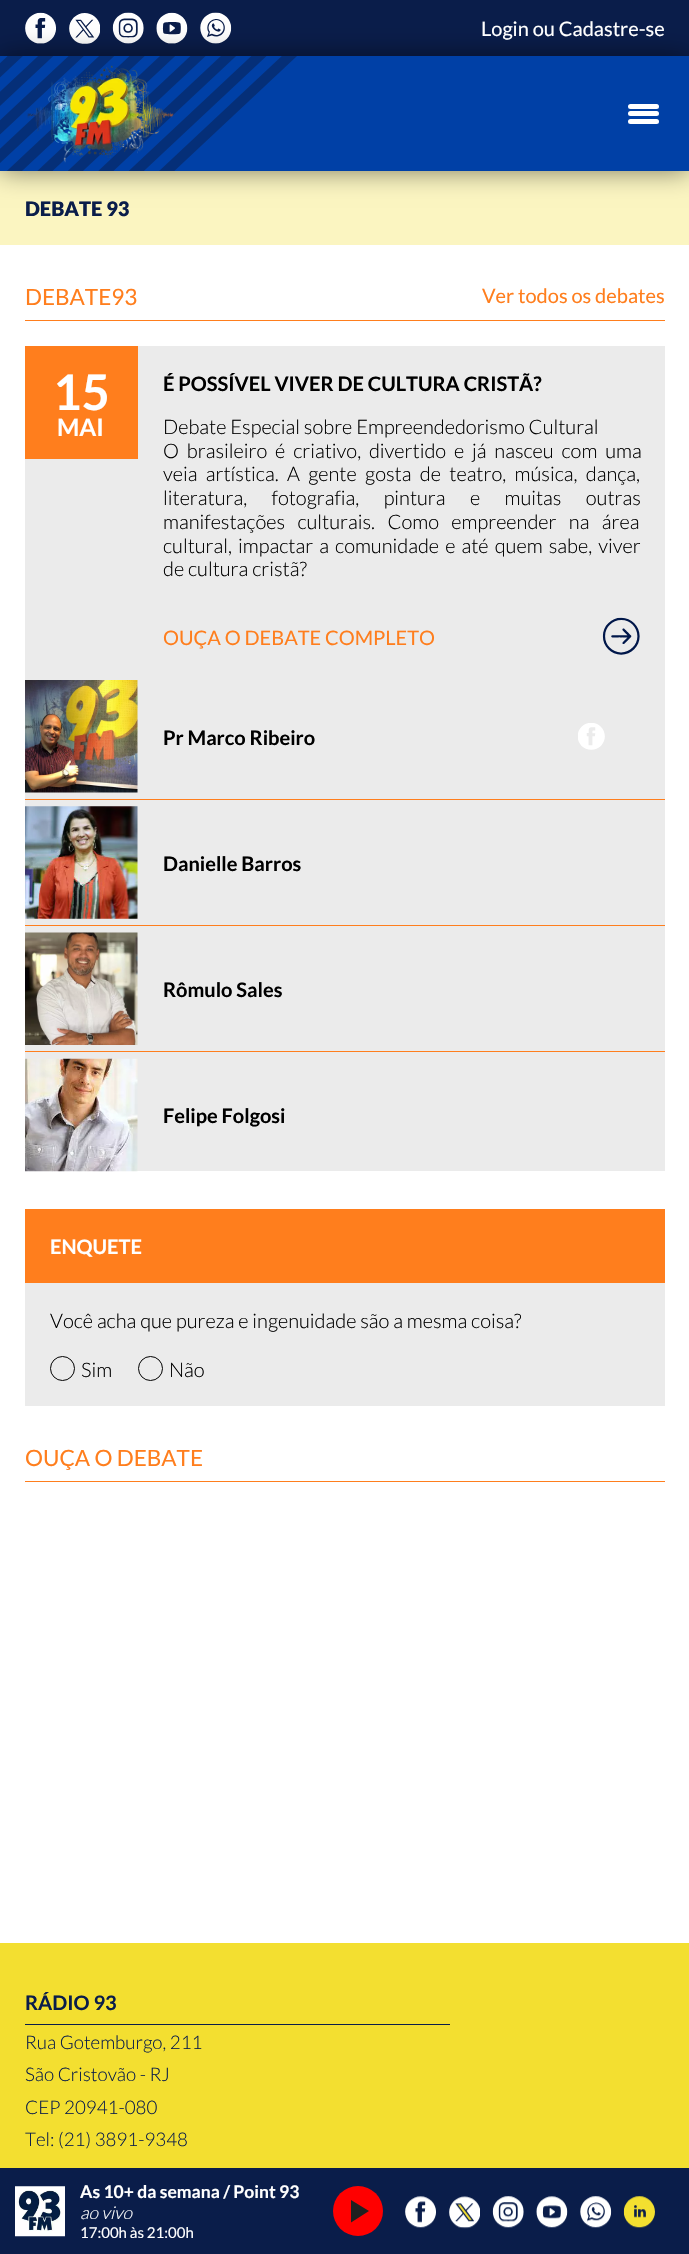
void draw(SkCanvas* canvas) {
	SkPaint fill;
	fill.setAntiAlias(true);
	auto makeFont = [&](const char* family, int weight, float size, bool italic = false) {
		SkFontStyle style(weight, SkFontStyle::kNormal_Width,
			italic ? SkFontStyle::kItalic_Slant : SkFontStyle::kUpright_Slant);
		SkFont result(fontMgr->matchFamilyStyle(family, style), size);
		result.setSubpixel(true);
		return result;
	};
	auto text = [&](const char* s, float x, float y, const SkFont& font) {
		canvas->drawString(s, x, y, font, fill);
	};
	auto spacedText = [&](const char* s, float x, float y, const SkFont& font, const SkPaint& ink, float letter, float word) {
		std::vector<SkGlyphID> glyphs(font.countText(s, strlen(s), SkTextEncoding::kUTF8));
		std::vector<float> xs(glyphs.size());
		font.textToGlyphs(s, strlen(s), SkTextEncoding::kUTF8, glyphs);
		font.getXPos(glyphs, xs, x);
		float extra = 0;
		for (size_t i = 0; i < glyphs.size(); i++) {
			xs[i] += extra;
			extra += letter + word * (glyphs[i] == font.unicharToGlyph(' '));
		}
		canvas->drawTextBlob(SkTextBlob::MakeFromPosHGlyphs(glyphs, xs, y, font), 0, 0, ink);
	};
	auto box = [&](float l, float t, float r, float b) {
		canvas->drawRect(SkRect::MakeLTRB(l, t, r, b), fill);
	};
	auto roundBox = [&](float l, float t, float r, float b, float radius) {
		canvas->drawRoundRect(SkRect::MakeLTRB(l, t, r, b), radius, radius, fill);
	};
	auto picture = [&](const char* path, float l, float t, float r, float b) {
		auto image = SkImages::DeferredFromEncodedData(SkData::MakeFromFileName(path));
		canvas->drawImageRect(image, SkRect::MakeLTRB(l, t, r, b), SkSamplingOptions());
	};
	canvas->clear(0xFFFFFFFF);
	fill.setColor(0xFF0A1D4A);
	box(0, 0, 689, 56);
	picture("image2.png", 25, 12, 56, 44);
	picture("image3.png", 69, 13, 100, 44);
	picture("image4.png", 112, 12, 144, 44);
	picture("image5.png", 156, 12, 188, 44);
	picture("image6.png", 200, 12, 232, 44);
	fill.setColor(0xFFFBF5C1);
	box(0, 171, 689, 245);
	fill.setColor(0x80000000);
	fill.setMaskFilter(SkMaskFilter::MakeBlur(kNormal_SkBlurStyle, 12.5f));
	canvas->drawRect(SkRect::MakeLTRB(0, 56, 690, 171), fill);
	fill.setMaskFilter(nullptr);
	fill.setColor(0xFF0040A6);
	box(0, 56, 689, 171);
	picture("image0.png", 0, 56, 297, 171);
	picture("image1.png", 27, 65, 174, 163);
	fill.setColor(0xFFFFFFFF);
	roundBox(628, 111, 659, 116, 2.5f);
	roundBox(628, 104, 659, 109, 2.5f);
	roundBox(628, 119, 659, 124, 2.5f);
	fill.setColor(0xFFFF7E1D);
	box(25, 320, 665, 321);
	fill.setColor(0xFFEBEBEB);
	box(25, 346, 665, 1171);
	fill.setColor(0xFFFF7E1D);
	box(25, 346, 138, 459);
	picture("image7.png", 602, 617, 640, 655);
	picture("image8.png", 25, 680, 138, 793);
	picture("image9.png", 578, 723, 605, 750);
	box(25, 799, 665, 800);
	picture("image10.png", 25, 806, 138, 919);
	box(25, 925, 665, 926);
	picture("image11.png", 25, 932, 138, 1045);
	box(25, 1051, 665, 1052);
	picture("image12.png", 25, 1058, 138, 1172);
	fill.setColor(0xFFEBEBEB);
	box(25, 1283, 665, 1406);
	fill.setColor(0xFFFF7E1D);
	box(25, 1209, 665, 1283);
	fill.setStyle(SkPaint::kStroke_Style);
	fill.setStrokeWidth(1);
	fill.setColor(0xFF000000);
	canvas->drawCircle(62.5f, 1368.5f, 12, fill);
	canvas->drawCircle(150.5f, 1368.5f, 12, fill);
	fill.setStyle(SkPaint::kFill_Style);
	fill.setColor(0xFFFF7E1D);
	box(25, 1481, 665, 1482);
	fill.setColor(0xFFF3DF30);
	box(0, 1943, 689, 2168);
	fill.setColor(0xFF0A1D4A);
	box(25, 2024, 450, 2025);
	box(0, 2168, 689, 2254);
	picture("image13.png", 15, 2186, 65, 2237);
	fill.setColor(0xFFFF0000);
	canvas->drawCircle(358, 2211, 25, fill);
	fill.setColor(0xFF202020);
	canvas->drawPath(SkPathBuilder().moveTo(351, 2222.5f).lineTo(351, 2200).lineTo(369, 2211).close().detach(), fill);
	picture("image14.png", 405, 2196, 436, 2228);
	picture("image15.png", 449, 2196, 480, 2229);
	picture("image16.png", 492, 2196, 524, 2228);
	picture("image17.png", 536, 2196, 568, 2228);
	picture("image18.png", 580, 2196, 612, 2228);
	picture("image19.png", 623, 2196, 655, 2228);
	auto font1 = makeFont("Lato", 400, 20);
	fill.setColor(0xFFFFFFFF);
	text("Login ou Cadastre-se", 481, 36, font1);
	auto font2 = makeFont("Lato", 900, 20);
	fill.setColor(0xFF0A1D4A);
	text("DEBATE 93", 25, 216, font2);
	auto font3 = makeFont("Lato", 400, 22.5f);
	fill.setColor(0xFFFF7E1D);
	text("DEBATE93", 25, 305, font3);
	text("Ver todos os debates", 482, 303, font1);
	auto font4 = makeFont("Lato", 700, 49);
	fill.setColor(0xFFFFFFFF);
	text("15", 53, 410, font4);
	auto font5 = makeFont("Lato", 700, 24);
	text("MAI", 57, 436, font5);
	auto font6 = makeFont("Lato", 700, 20);
	fill.setColor(0xFF000000);
	text("É POSSÍVEL VIVER DE CULTURA CRISTÃ?", 163, 391, font6);
	auto font7 = makeFont("Lato", 300, 20);
	text("Debate Especial sobre Empreendedorismo Cultural", 163, 434, font7);
	spacedText("O brasileiro é criativo, divertido e já nasceu com uma", 163, 458, font7, fill, 0, 4);
	spacedText("veia artística. A gente gosta de teatro, música, dança,", 163, 481, font7, fill, 0, 4.5f);
	spacedText("literatura, fotografia, pintura e muitas outras", 163, 505, font7, fill, 0, 20.5f);
	spacedText("manifestações culturais. Como empreender na área", 163, 529, font7, fill, 0, 8.5f);
	spacedText("cultural, impactar a comunidade e até quem sabe, viver", 163, 553, font7, fill, 0, 2.25f);
	text("de cultura cristã?", 163, 576, font7);
	fill.setColor(0xFFFF7E1D);
	text("OUÇA O DEBATE COMPLETO", 163, 645, font1);
	fill.setColor(0xFF000000);
	text("Pr Marco Ribeiro", 163, 745, font6);
	text("Danielle Barros", 163, 871, font6);
	text("Rômulo Sales", 163, 997, font6);
	text("Felipe Folgosi", 163, 1123, font6);
	fill.setColor(0xFFFFFFFF);
	text("ENQUETE", 50, 1254, font6);
	fill.setColor(0xFF000000);
	text("Você acha que pureza e ingenuidade são a mesma coisa?", 50, 1328, font7);
	text("Sim", 81, 1377, font7);
	text("Não", 169, 1377, font7);
	fill.setColor(0xFFFF7E1D);
	text("OUÇA O DEBATE", 25, 1466, font3);
	fill.setColor(0xFF0A1D4A);
	text("RÁDIO 93", 25, 2010, font6);
	auto font8 = makeFont("Lato", 300, 18.75f);
	text("Rua Gotemburgo, 211", 25, 2049, font8);
	text("São Cristovão - RJ", 25, 2081, font8);
	text("CEP 20941-080", 25, 2114, font8);
	text("Tel: (21) 3891-9348", 25, 2146, font8);
	auto font9 = makeFont("Lato", 700, 17.5f);
	fill.setColor(0xFFFFFFFF);
	text("As 10+ da semana / Point 93", 80, 2198, font9);
	auto font10 = makeFont("Lato", 300, 17.5f, true);
	text("ao vivo", 80, 2219, font10);
	auto font11 = makeFont("Lato", 400, 15);
	text("17:00h às 21:00h", 80, 2238, font11);
}
